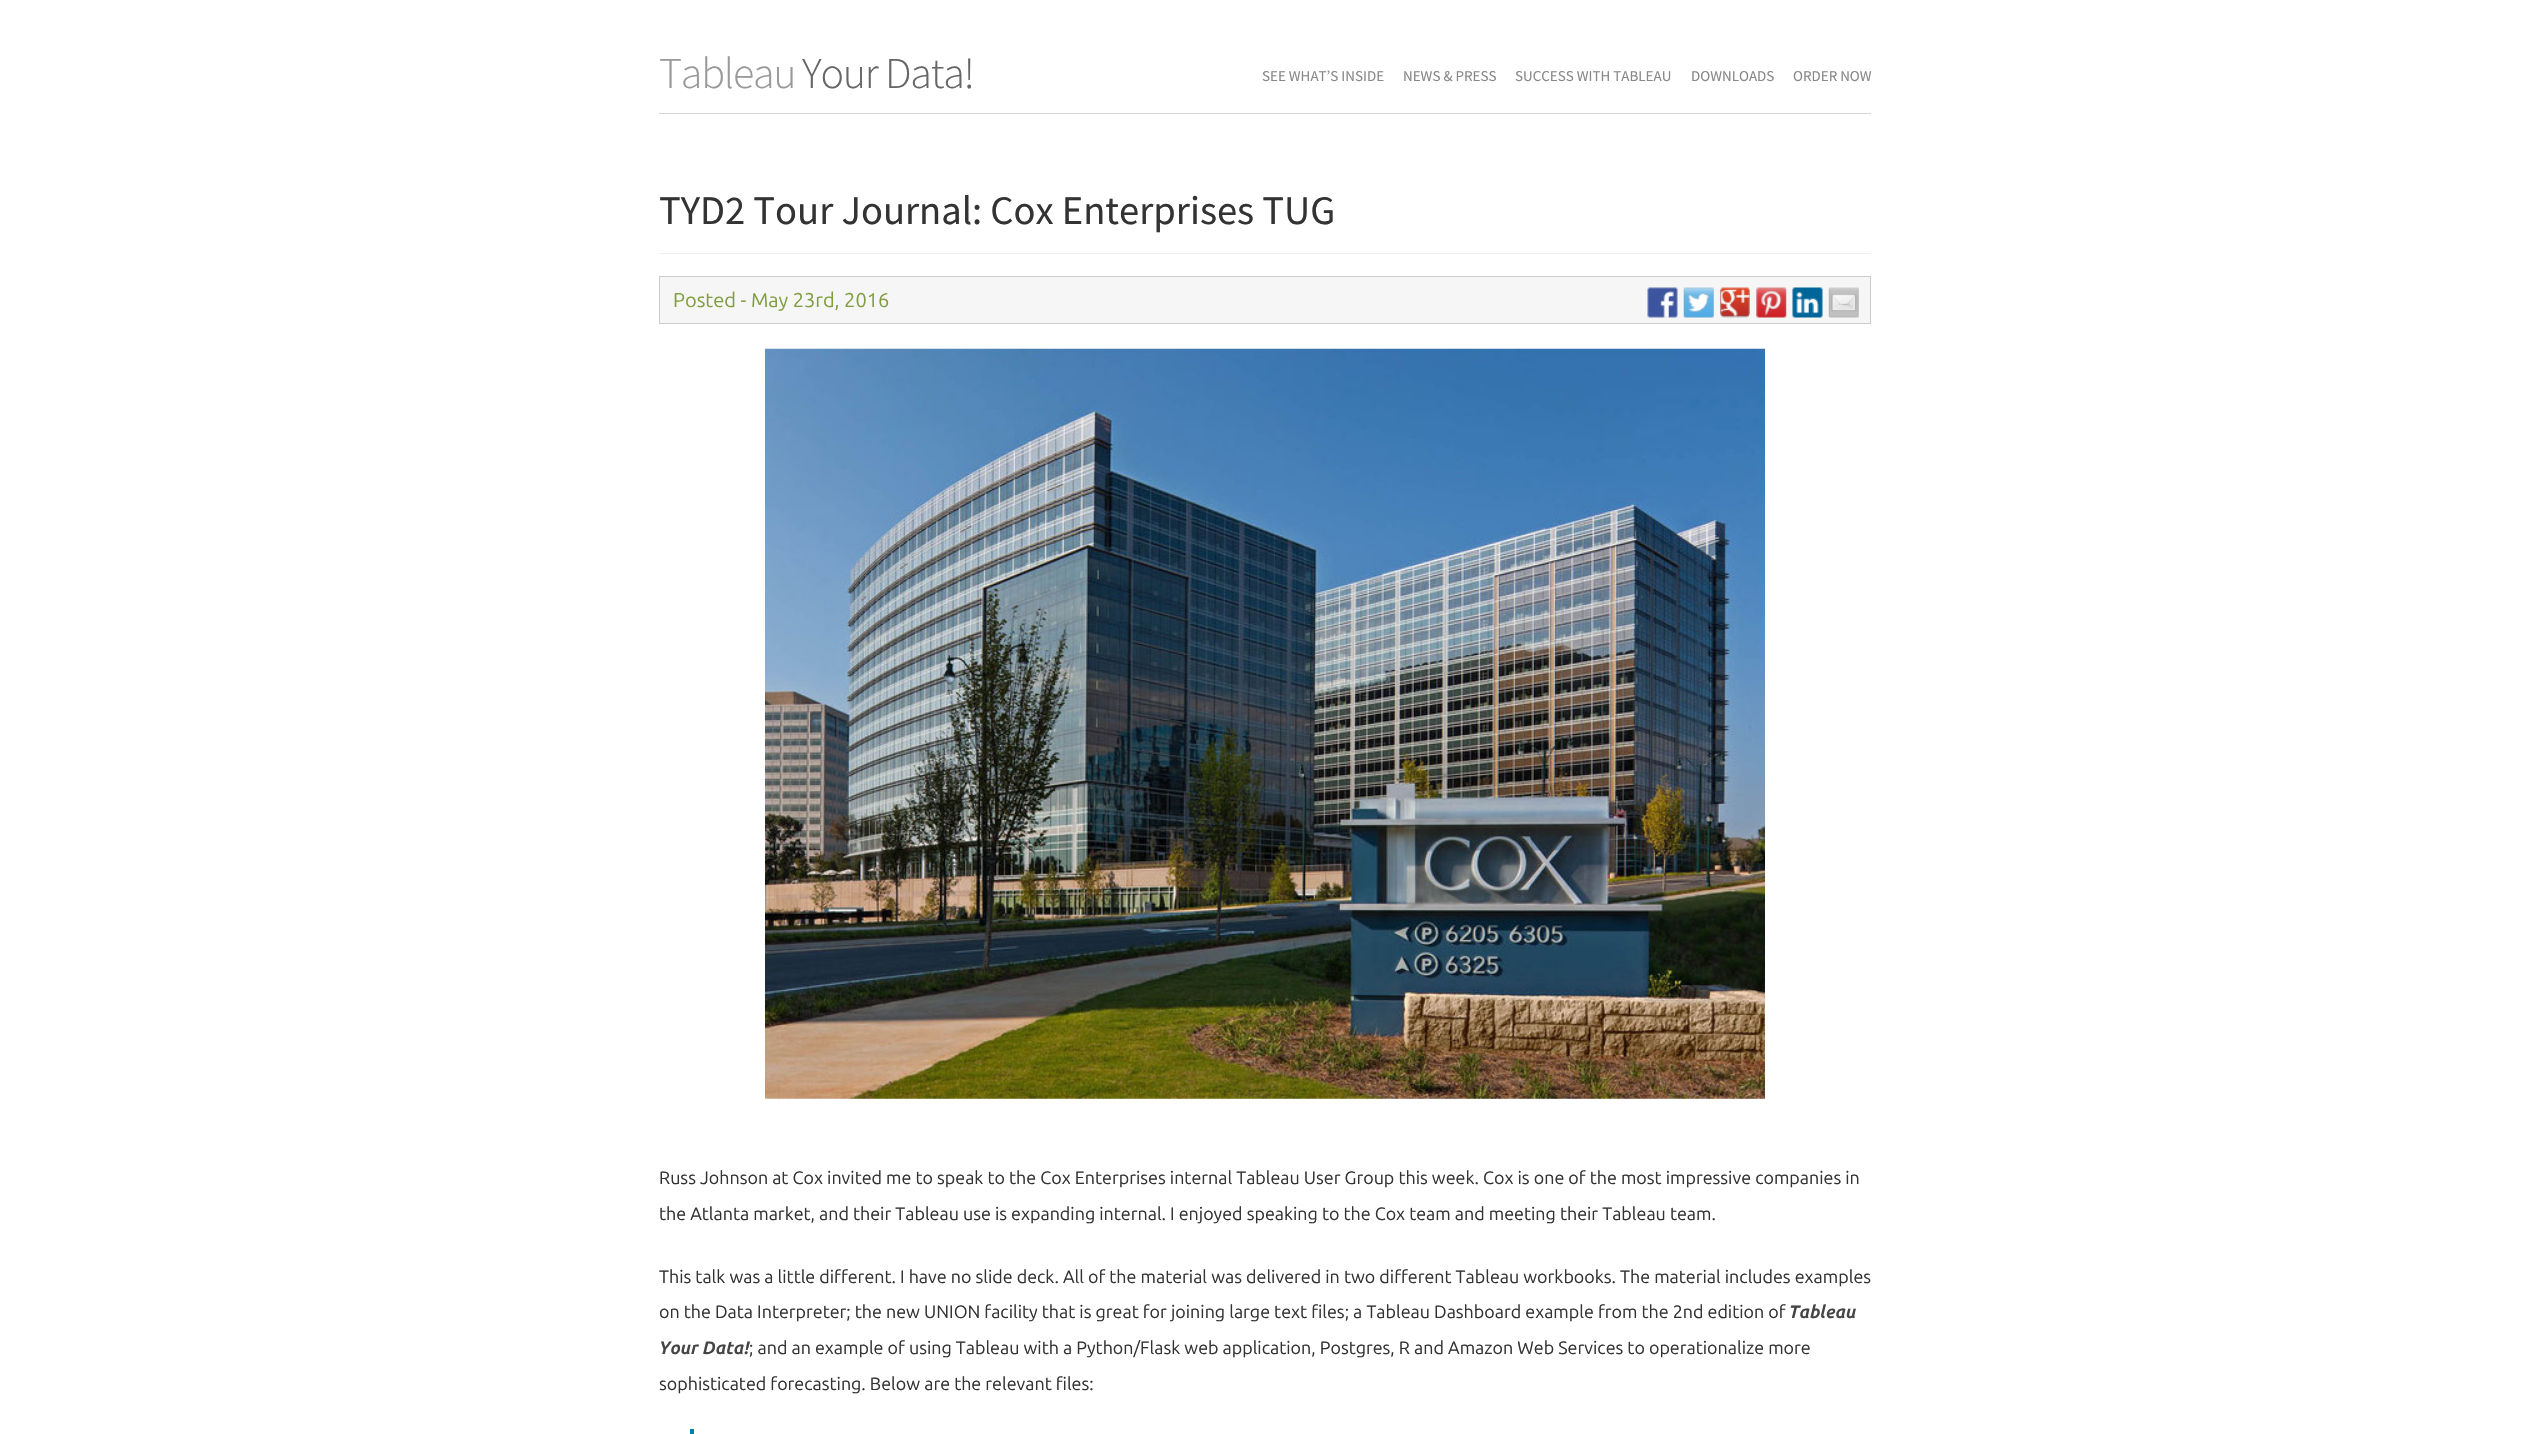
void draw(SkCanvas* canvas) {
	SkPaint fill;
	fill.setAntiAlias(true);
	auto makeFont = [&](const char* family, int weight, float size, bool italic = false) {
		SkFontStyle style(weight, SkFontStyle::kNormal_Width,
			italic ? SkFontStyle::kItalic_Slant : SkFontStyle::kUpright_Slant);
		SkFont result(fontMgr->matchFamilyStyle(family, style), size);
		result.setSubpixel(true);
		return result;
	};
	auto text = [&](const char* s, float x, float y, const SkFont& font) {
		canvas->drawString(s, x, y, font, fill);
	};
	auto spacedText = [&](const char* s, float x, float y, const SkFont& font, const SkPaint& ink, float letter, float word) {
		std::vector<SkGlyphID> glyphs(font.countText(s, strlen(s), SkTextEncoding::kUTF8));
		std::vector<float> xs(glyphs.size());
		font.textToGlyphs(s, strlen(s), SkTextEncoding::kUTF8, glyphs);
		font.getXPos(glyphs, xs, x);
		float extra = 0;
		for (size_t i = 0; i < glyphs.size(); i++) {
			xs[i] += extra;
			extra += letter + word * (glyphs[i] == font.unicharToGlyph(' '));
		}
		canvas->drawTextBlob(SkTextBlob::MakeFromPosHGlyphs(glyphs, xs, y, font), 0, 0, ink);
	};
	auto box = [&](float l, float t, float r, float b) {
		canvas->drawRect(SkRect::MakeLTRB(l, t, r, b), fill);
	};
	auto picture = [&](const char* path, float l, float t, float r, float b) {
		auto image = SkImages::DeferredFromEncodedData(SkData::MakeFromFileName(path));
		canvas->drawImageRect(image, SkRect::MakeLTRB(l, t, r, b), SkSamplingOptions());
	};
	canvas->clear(0xFFFFFFFF);
	fill.setColor(0xFFD4D4D4);
	box(659, 113, 1871, 114);
	fill.setColor(0xFFEEEEEE);
	box(659, 253, 1871, 254);
	fill.setColor(0xFFF6F6F6);
	canvas->drawRect(SkRect::MakeLTRB(659.5f, 276.5f, 1870.5f, 323.5f), fill);
	fill.setStyle(SkPaint::kStroke_Style);
	fill.setStrokeWidth(1);
	fill.setColor(0xFFCCCCCC);
	canvas->drawRect(SkRect::MakeLTRB(659.5f, 276.5f, 1870.5f, 323.5f), fill);
	picture("image0.png", 1647, 287, 1678, 318);
	picture("image1.png", 1683, 287, 1714, 318);
	picture("image2.png", 1720, 287, 1750, 318);
	picture("image3.png", 1756, 287, 1787, 318);
	picture("image4.png", 1792, 287, 1823, 318);
	picture("image5.png", 1828, 287, 1859, 318);
	picture("image6.png", 765, 348, 1765, 1099);
	fill.setStyle(SkPaint::kFill_Style);
	fill.setColor(0xFF0082A7);
	box(690, 1429, 694, 1434);
	auto font1 = makeFont("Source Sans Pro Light", 300, 44);
	fill.setColor(0xFF999999);
	spacedText("Tableau", 659, 88, font1, fill, -1.25f, 0);
	fill.setColor(0xFF666666);
	spacedText("Your Data!", 802, 88, font1, fill, -1.25f, 0);
	auto font2 = makeFont("Source Sans Pro", 400, 15);
	fill.setColor(0xFF888888);
	text("SEE WHAT’S INSIDE", 1262, 81, font2);
	text("NEWS & PRESS", 1403, 81, font2);
	text("SUCCESS WITH TABLEAU", 1515, 81, font2);
	text("DOWNLOADS", 1691, 81, font2);
	text("ORDER NOW", 1793, 81, font2);
	auto font3 = makeFont("Source Sans Pro", 400, 40.6f);
	fill.setColor(0xFF333333);
	text("TYD2 Tour Journal: Cox Enterprises TUG", 659, 224, font3);
	auto font4 = makeFont("Ubuntu", 400, 20);
	fill.setColor(0xFF809E40);
	text("Posted - May 23rd, 2016", 673, 307, font4);
	auto font5 = makeFont("Ubuntu", 400, 17.88f);
	fill.setColor(0xFF333333);
	text("Russ Johnson at Cox invited me to speak to the Cox Enterprises internal Tableau User Group this week. Cox is one of the most impressive companies in", 659, 1184, font5);
	text("the Atlanta market, and their Tableau use is expanding internal. I enjoyed speaking to the Cox team and meeting their Tableau team.", 659, 1220, font5);
	text("This talk was a little different. I have no slide deck. All of the material was delivered in two different Tableau workbooks. The material includes examples", 659, 1283, font5);
	text("on the Data Interpreter; the new UNION facility that is great for joining large text files; a Tableau Dashboard example from the 2nd edition of", 659, 1318, font5);
	auto font6 = makeFont("Ubuntu", 700, 17.88f, true);
	fill.setColor(0xFF444444);
	text("Tableau", 1789, 1318, font6);
	text("Your Data!", 659, 1354, font6);
	fill.setColor(0xFF333333);
	text("; and an example of using Tableau with a Python/Flask web application, Postgres, R and Amazon Web Services to operationalize more", 749, 1354, font5);
	text("sophisticated forecasting. Below are the relevant files:", 659, 1390, font5);
}
